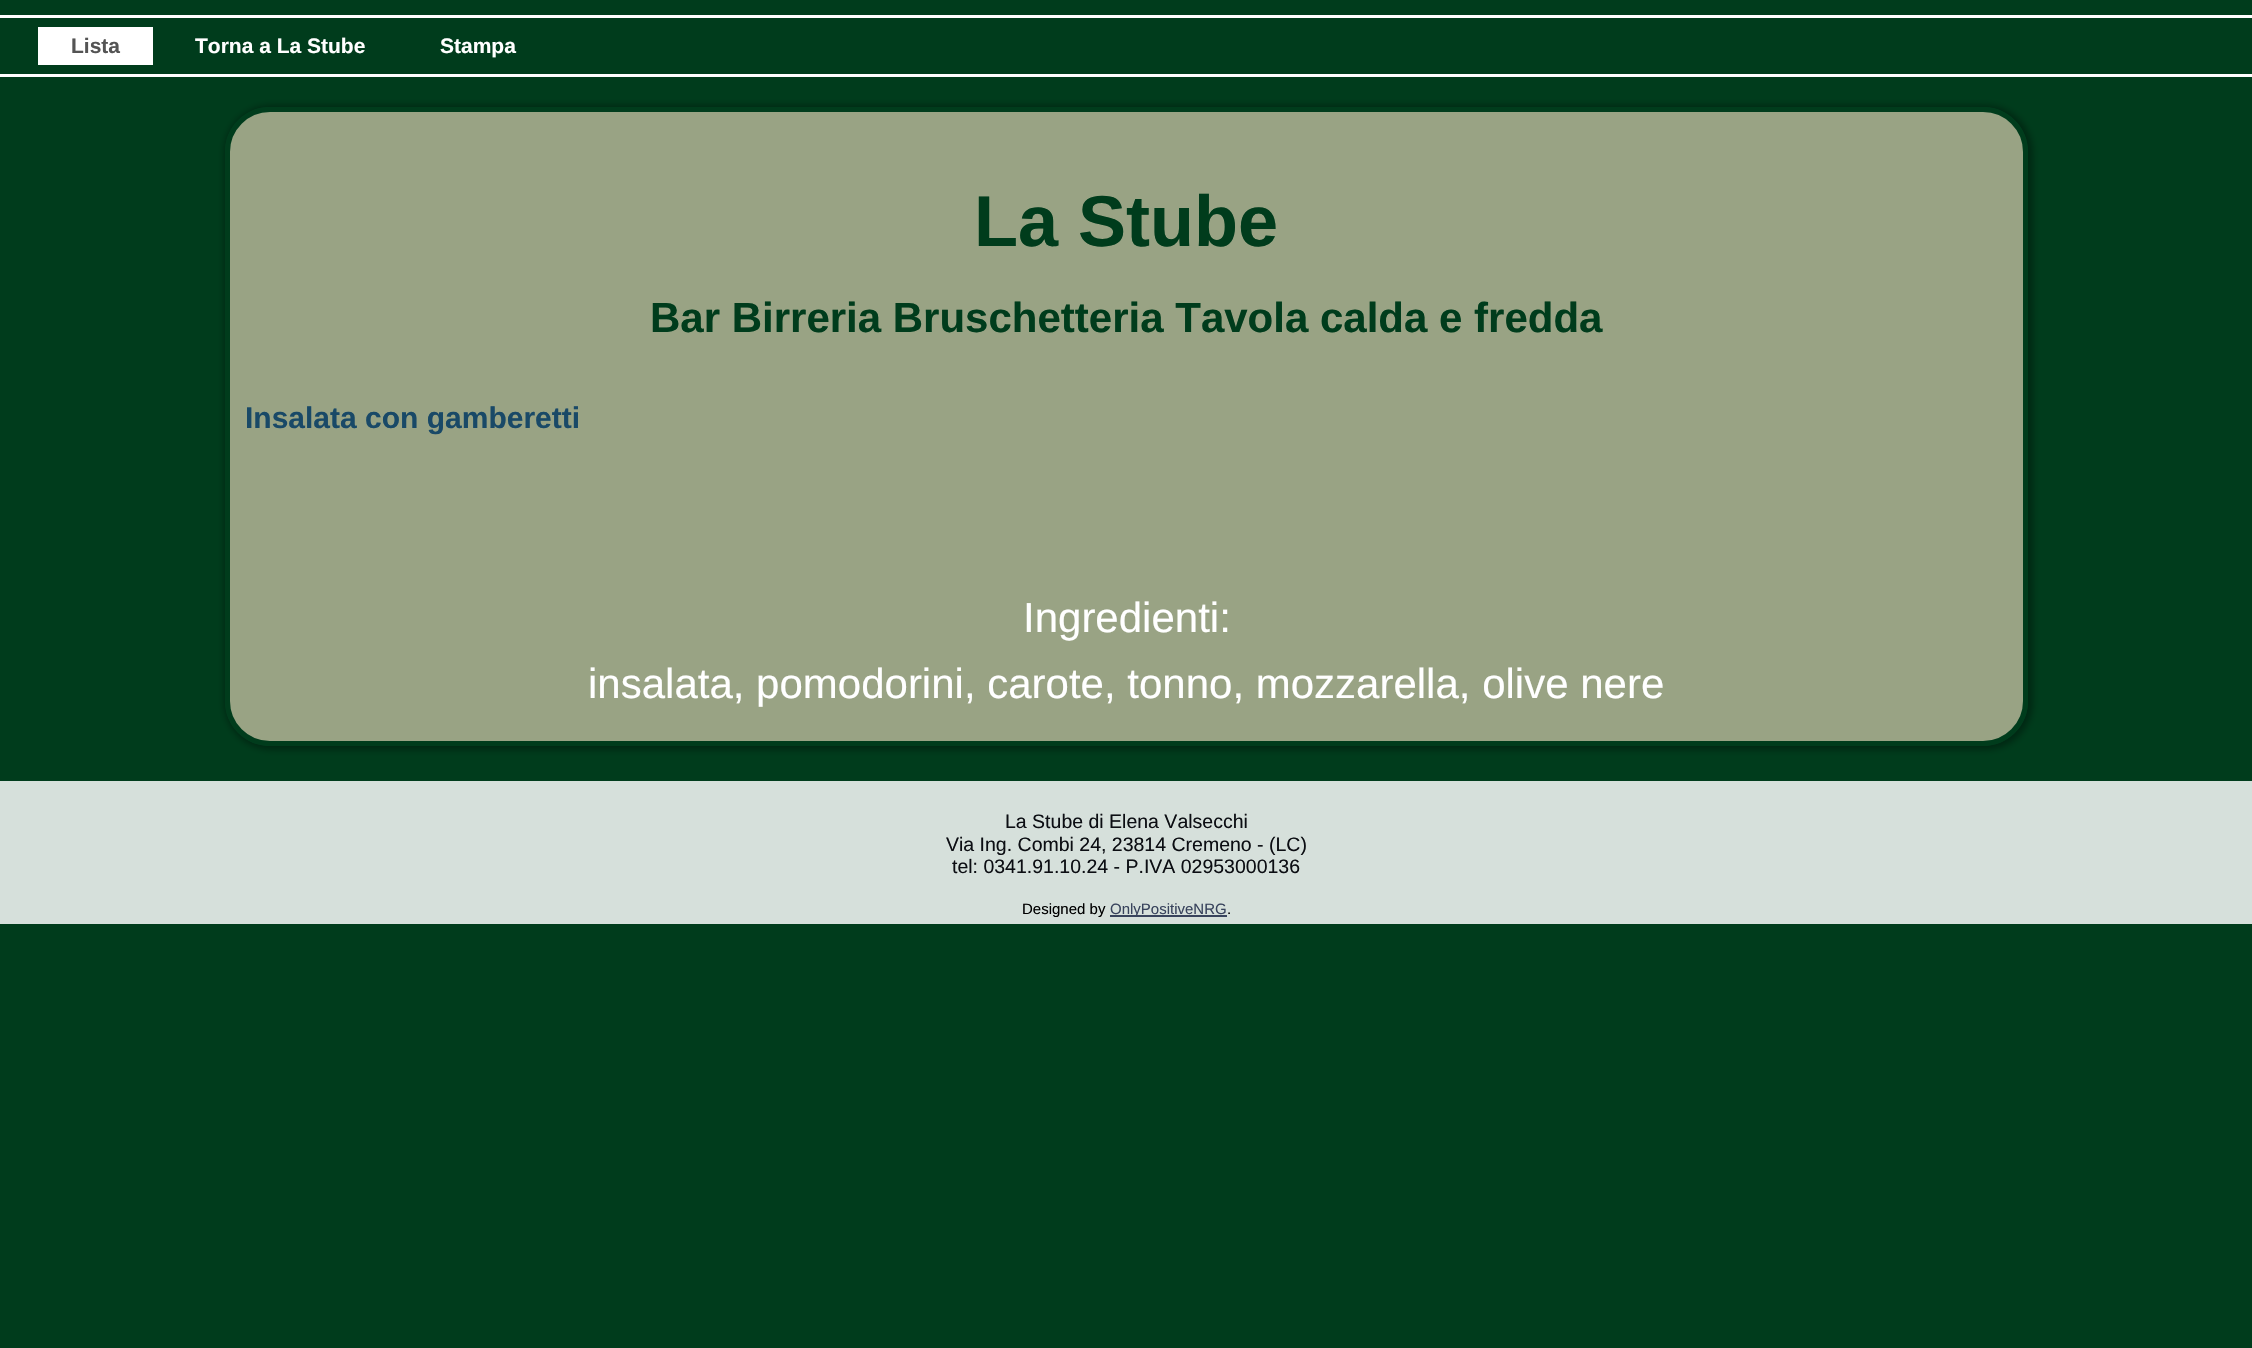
void draw(SkCanvas* canvas) {
	SkPaint fill;
	fill.setAntiAlias(true);
	auto makeFont = [&](const char* family, int weight, float size, bool italic = false) {
		SkFontStyle style(weight, SkFontStyle::kNormal_Width,
			italic ? SkFontStyle::kItalic_Slant : SkFontStyle::kUpright_Slant);
		SkFont result(fontMgr->matchFamilyStyle(family, style), size);
		result.setSubpixel(true);
		return result;
	};
	auto text = [&](const char* s, float x, float y, const SkFont& font) {
		canvas->drawString(s, x, y, font, fill);
	};
	auto box = [&](float l, float t, float r, float b) {
		canvas->drawRect(SkRect::MakeLTRB(l, t, r, b), fill);
	};
	canvas->clear(0xFF003C1C);
	fill.setColor(0xFFFFFFFF);
	box(0, 15, 2252, 18);
	box(0, 74, 2252, 77);
	box(38, 27, 153, 65);
	canvas->save();
	canvas->clipPath(SkPathBuilder(SkPathFillType::kEvenOdd).moveTo(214, 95).lineTo(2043, 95).lineTo(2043, 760).lineTo(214, 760).close().moveTo(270, 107).lineTo(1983, 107).cubicTo(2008, 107, 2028, 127, 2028, 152).lineTo(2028, 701).cubicTo(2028, 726, 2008, 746, 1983, 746).lineTo(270, 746).cubicTo(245, 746, 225, 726, 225, 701).lineTo(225, 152).cubicTo(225, 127, 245, 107, 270, 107).close().detach(), true);
	fill.setColor(0x54000000);
	fill.setMaskFilter(SkMaskFilter::MakeBlur(kNormal_SkBlurStyle, 3));
	canvas->drawRoundRect(SkRect::MakeLTRB(224, 105, 2033, 750), 48, 48, fill);
	fill.setMaskFilter(nullptr);
	canvas->restore();
	fill.setColor(0xD4B8B799);
	canvas->drawRoundRect(SkRect::MakeLTRB(227.5f, 109.5f, 2025.5f, 743.5f), 42.5f, 42.5f, fill);
	fill.setStyle(SkPaint::kStroke_Style);
	fill.setStrokeWidth(5);
	fill.setColor(0xFF003C1C);
	canvas->drawRoundRect(SkRect::MakeLTRB(227.5f, 109.5f, 2025.5f, 743.5f), 42.5f, 42.5f, fill);
	fill.setStyle(SkPaint::kFill_Style);
	fill.setColor(0xFFD6E0DB);
	box(0, 781, 2252, 924);
	fill.setColor(0xFF38435C);
	box(1110, 915, 1227, 917);
	auto font1 = makeFont("Liberation Sans", 700, 21);
	fill.setColor(0xFF545454);
	text("Lista", 71, 53, font1);
	fill.setColor(0xFFFFFFFF);
	text("Torna a La Stube", 195, 53, font1);
	text("Stampa", 440, 53, font1);
	auto font2 = makeFont("Liberation Sans", 700, 72);
	fill.setColor(0xFF003C1C);
	text("La Stube", 974, 246, font2);
	auto font3 = makeFont("Liberation Sans", 700, 42);
	text("Bar Birreria Bruschetteria Tavola calda e fredda", 650, 332, font3);
	auto font4 = makeFont("Liberation Sans", 700, 30);
	fill.setColor(0xFF194967);
	text("Insalata con gamberetti", 245, 428, font4);
	auto font5 = makeFont("Liberation Sans", 400, 42);
	fill.setColor(0xFFFFFFFF);
	text("Ingredienti:", 1023, 632, font5);
	text("insalata, pomodorini, carote, tonno, mozzarella, olive nere", 588, 698, font5);
	auto font6 = makeFont("Liberation Sans", 400, 19.5f);
	fill.setColor(0xFF0C0E13);
	text("La Stube di Elena Valsecchi", 1005, 828, font6);
	text("Via Ing. Combi 24, 23814 Cremeno - (LC)", 946, 851, font6);
	text("tel: 0341.91.10.24 - P.IVA 02953000136", 952, 873, font6);
	auto font7 = makeFont("Liberation Sans", 400, 15);
	fill.setColor(0xFF000000);
	text("Designed by", 1022, 914, font7);
	fill.setColor(0xFF38435C);
	text("OnlyPositiveNRG", 1110, 914, font7);
	fill.setColor(0xFF000000);
	text(".", 1227, 914, font7);
}
